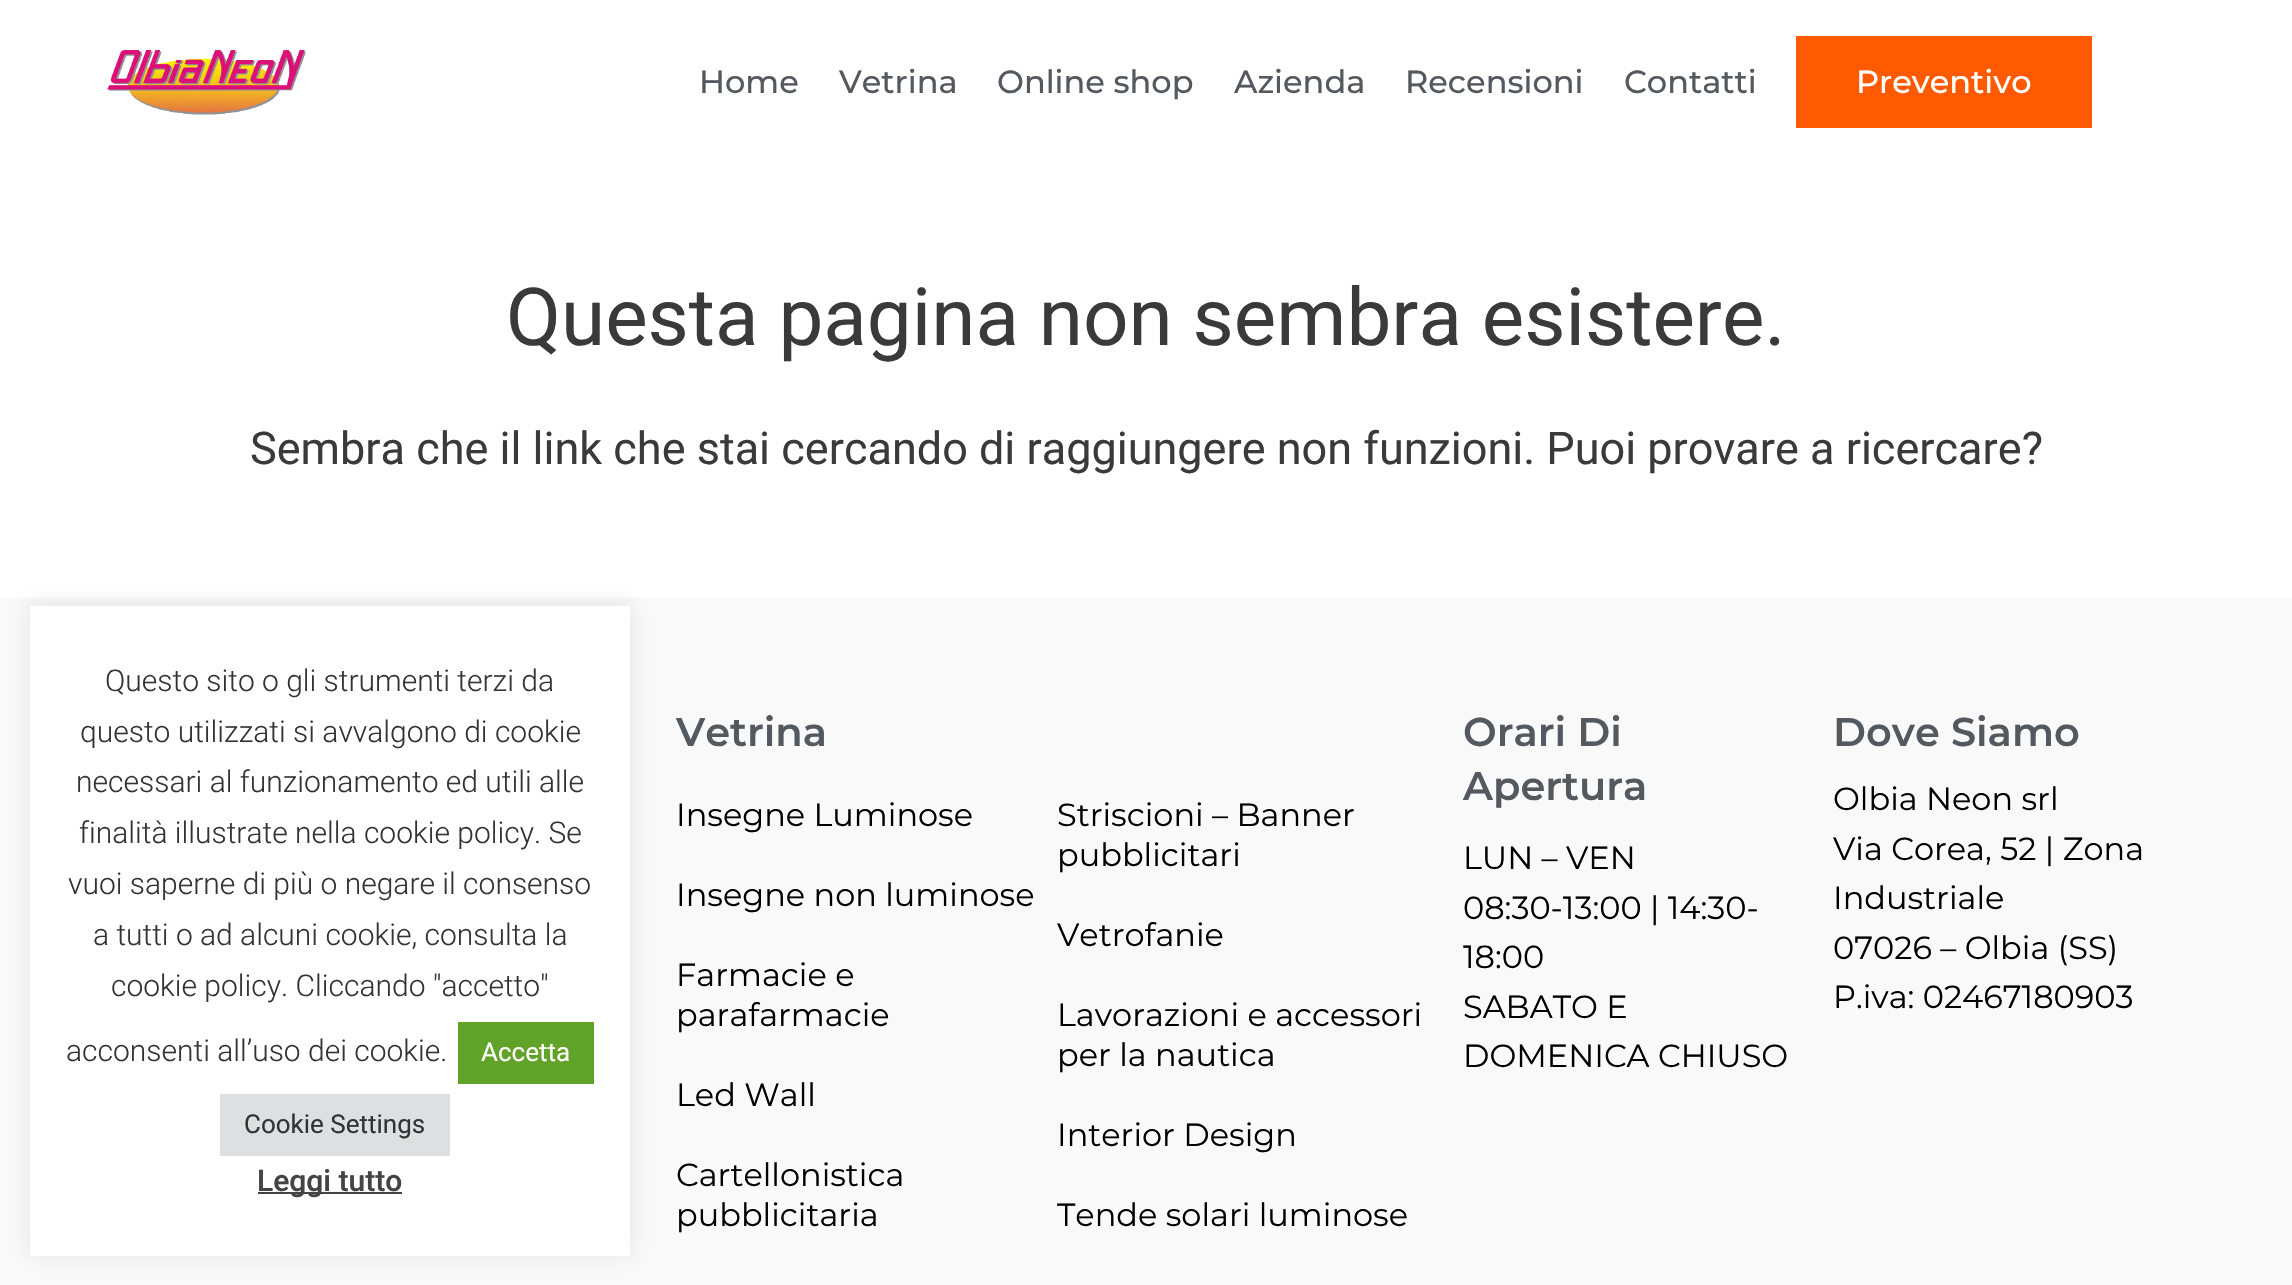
void draw(SkCanvas* canvas) {
	SkPaint fill;
	fill.setAntiAlias(true);
	auto makeFont = [&](const char* family, int weight, float size, bool italic = false) {
		SkFontStyle style(weight, SkFontStyle::kNormal_Width,
			italic ? SkFontStyle::kItalic_Slant : SkFontStyle::kUpright_Slant);
		SkFont result(fontMgr->matchFamilyStyle(family, style), size);
		result.setSubpixel(true);
		return result;
	};
	auto text = [&](const char* s, float x, float y, const SkFont& font) {
		canvas->drawString(s, x, y, font, fill);
	};
	auto box = [&](float l, float t, float r, float b) {
		canvas->drawRect(SkRect::MakeLTRB(l, t, r, b), fill);
	};
	auto picture = [&](const char* path, float l, float t, float r, float b) {
		auto image = SkImages::DeferredFromEncodedData(SkData::MakeFromFileName(path));
		canvas->drawImageRect(image, SkRect::MakeLTRB(l, t, r, b), SkSamplingOptions());
	};
	canvas->clear(0xFFFFFFFF);
	picture("image0.png", 107, 50, 306, 115);
	fill.setColor(0xFFFF5A00);
	box(1796, 36, 2092, 128);
	fill.setColor(0xFFF9F9F9);
	box(0, 598, 2292, 1285);
	fill.setColor(0x4DACABAB);
	fill.setMaskFilter(SkMaskFilter::MakeBlur(kNormal_SkBlurStyle, 10));
	canvas->drawRect(SkRect::MakeLTRB(30, 604, 630, 1254), fill);
	fill.setMaskFilter(nullptr);
	fill.setColor(0xFFFFFFFF);
	box(30, 606, 630, 1256);
	fill.setColor(0xFF61A229);
	box(458, 1022, 594, 1084);
	fill.setColor(0xFFDEDFE0);
	box(220, 1094, 450, 1156);
	fill.setColor(0xFF444444);
	box(258, 1192, 402, 1194);
	auto font1 = makeFont("Montserrat", 500, 32);
	fill.setColor(0xFF54595F);
	text("Home", 699, 93, font1);
	text("Vetrina", 839, 93, font1);
	text("Online shop", 997, 93, font1);
	text("Azienda", 1234, 93, font1);
	text("Recensioni", 1405, 93, font1);
	text("Contatti", 1624, 93, font1);
	fill.setColor(0xFFFFFFFF);
	text("Preventivo", 1856, 93, font1);
	auto font2 = makeFont("Roboto", 400, 80);
	fill.setColor(0xFF3A3A3A);
	text("Questa pagina non sembra esistere.", 506, 345, font2);
	auto font3 = makeFont("Roboto", 400, 45);
	text("Sembra che il link che stai cercando di raggiungere non funzioni. Puoi provare a ricercare?", 250, 464, font3);
	auto font4 = makeFont("Montserrat", 600, 40);
	fill.setColor(0xFF54595F);
	text("Vetrina", 676, 746, font4);
	auto font5 = makeFont("Montserrat", 400, 32);
	fill.setColor(0xFF000000);
	text("Insegne Luminose", 676, 826, font5);
	text("Insegne non luminose", 676, 906, font5);
	text("Farmacie e", 676, 986, font5);
	text("parafarmacie", 676, 1026, font5);
	text("Led Wall", 676, 1106, font5);
	text("Cartellonistica", 676, 1186, font5);
	text("pubblicitaria", 676, 1226, font5);
	text("Striscioni – Banner", 1057, 826, font5);
	text("pubblicitari", 1057, 866, font5);
	text("Vetrofanie", 1057, 946, font5);
	text("Lavorazioni e accessori", 1057, 1026, font5);
	text("per la nautica", 1057, 1066, font5);
	text("Interior Design", 1057, 1146, font5);
	text("Tende solari luminose", 1057, 1226, font5);
	fill.setColor(0xFF54595F);
	text("Orari Di", 1463, 746, font4);
	text("Apertura", 1463, 800, font4);
	fill.setColor(0xFF000000);
	text("LUN – VEN", 1463, 869, font5);
	text("08:30-13:00 | 14:30-", 1463, 919, font5);
	text("18:00", 1463, 968, font5);
	text("SABATO E", 1463, 1018, font5);
	text("DOMENICA CHIUSO", 1463, 1067, font5);
	fill.setColor(0xFF54595F);
	text("Dove Siamo", 1833, 746, font4);
	fill.setColor(0xFF000000);
	text("Olbia Neon srl", 1833, 810, font5);
	text("Via Corea, 52 | Zona", 1833, 860, font5);
	text("Industriale", 1833, 909, font5);
	text("07026 – Olbia (SS)", 1833, 959, font5);
	text("P.iva: 02467180903", 1833, 1008, font5);
	auto font6 = makeFont("Roboto", 300, 30);
	fill.setColor(0xFF333333);
	text("Questo sito o gli strumenti terzi da", 105, 691, font6);
	text("questo utilizzati si avvalgono di cookie", 80, 742, font6);
	text("necessari al funzionamento ed utili alle", 76, 792, font6);
	text("finalità illustrate nella cookie policy. Se", 79, 843, font6);
	text("vuoi saperne di più o negare il consenso", 68, 894, font6);
	text("a tutti o ad alcuni cookie, consulta la", 93, 945, font6);
	text("cookie policy. Cliccando \"accetto\"", 111, 996, font6);
	text("acconsenti all’uso dei cookie.", 66, 1061, font6);
	auto font7 = makeFont("Roboto", 400, 26);
	fill.setColor(0xFFFFFFFF);
	text("Accetta", 481, 1061, font7);
	fill.setColor(0xFF333333);
	text("Cookie Settings", 244, 1133, font7);
	auto font8 = makeFont("Roboto", 500, 30);
	fill.setColor(0xFF444444);
	text("Leggi tutto", 257, 1191, font8);
}
